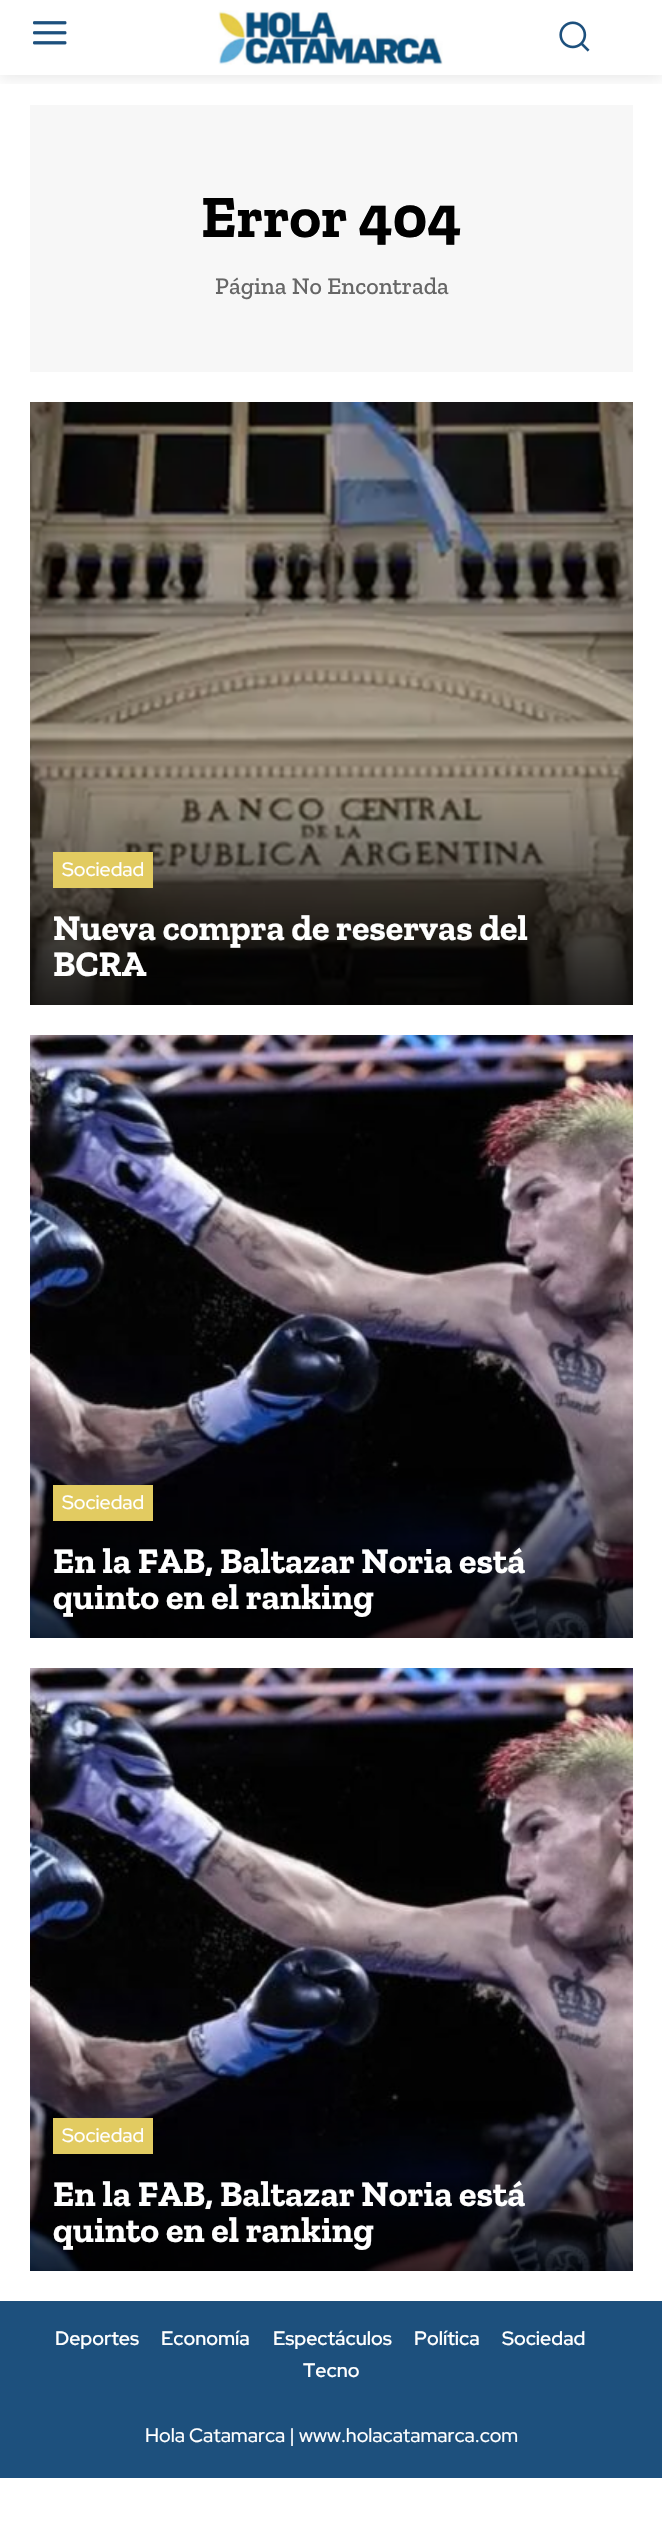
void draw(SkCanvas* canvas) {
	SkPaint fill;
	fill.setAntiAlias(true);
	auto makeFont = [&](const char* family, int weight, float size, bool italic = false) {
		SkFontStyle style(weight, SkFontStyle::kNormal_Width,
			italic ? SkFontStyle::kItalic_Slant : SkFontStyle::kUpright_Slant);
		SkFont result(fontMgr->matchFamilyStyle(family, style), size);
		result.setSubpixel(true);
		return result;
	};
	auto text = [&](const char* s, float x, float y, const SkFont& font) {
		canvas->drawString(s, x, y, font, fill);
	};
	auto box = [&](float l, float t, float r, float b) {
		canvas->drawRect(SkRect::MakeLTRB(l, t, r, b), fill);
	};
	auto picture = [&](const char* path, float l, float t, float r, float b) {
		auto image = SkImages::DeferredFromEncodedData(SkData::MakeFromFileName(path));
		canvas->drawImageRect(image, SkRect::MakeLTRB(l, t, r, b), SkSamplingOptions());
	};
	canvas->clear(0xFFFFFFFF);
	picture("image0.png", 33, 21, 67, 45);
	picture("image1.png", 218, 10, 443, 65);
	picture("image2.png", 559, 21, 590, 52);
	canvas->save();
	canvas->clipRect(SkRect::MakeLTRB(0, 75, 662, 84));
	fill.setColor(0x17000000);
	fill.setMaskFilter(SkMaskFilter::MakeBlur(kNormal_SkBlurStyle, 7.5f));
	canvas->drawRect(SkRect::MakeLTRB(0, 3, 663, 78), fill);
	fill.setMaskFilter(nullptr);
	canvas->restore();
	fill.setColor(0xFFF7F7F7);
	box(30, 105, 633, 372);
	picture("image3.png", 30, 402, 633, 1005);
	fill.setColor(0xFFE2CB61);
	box(53, 852, 153, 888);
	picture("image4.png", 30, 1035, 633, 1638);
	box(53, 1485, 153, 1521);
	picture("image4.png", 30, 1668, 633, 2271);
	box(53, 2118, 153, 2154);
	fill.setColor(0xFF1D507D);
	box(0, 2301, 662, 2478);
	auto font1 = makeFont("Zilla Slab", 700, 60);
	fill.setColor(0xFF000000);
	text("Error 404", 201, 237, font1);
	auto font2 = makeFont("Zilla Slab", 500, 24);
	fill.setColor(0xFF666666);
	text("Página No Encontrada", 215, 294, font2);
	auto font3 = makeFont("Red Hat Display", 500, 19.5f);
	fill.setColor(0xFFFFFFFF);
	text("Sociedad", 62, 876, font3);
	auto font4 = makeFont("Zilla Slab", 700, 36);
	text("Nueva compra de reservas del", 53, 940, font4);
	text("BCRA", 53, 976, font4);
	text("Sociedad", 62, 1509, font3);
	text("En la FAB, Baltazar Noria está", 53, 1573, font4);
	text("quinto en el ranking", 53, 1609, font4);
	text("Sociedad", 62, 2142, font3);
	text("En la FAB, Baltazar Noria está", 53, 2206, font4);
	text("quinto en el ranking", 53, 2242, font4);
	auto font5 = makeFont("Red Hat Display", 600, 19.5f);
	text("Deportes", 55, 2345, font5);
	text("Economía", 161, 2345, font5);
	text("Espectáculos", 273, 2345, font5);
	text("Política", 414, 2345, font5);
	text("Sociedad", 502, 2345, font5);
	text("Tecno", 303, 2377, font5);
	text("Hola Catamarca | www.holacatamarca.com", 145, 2442, font3);
}
